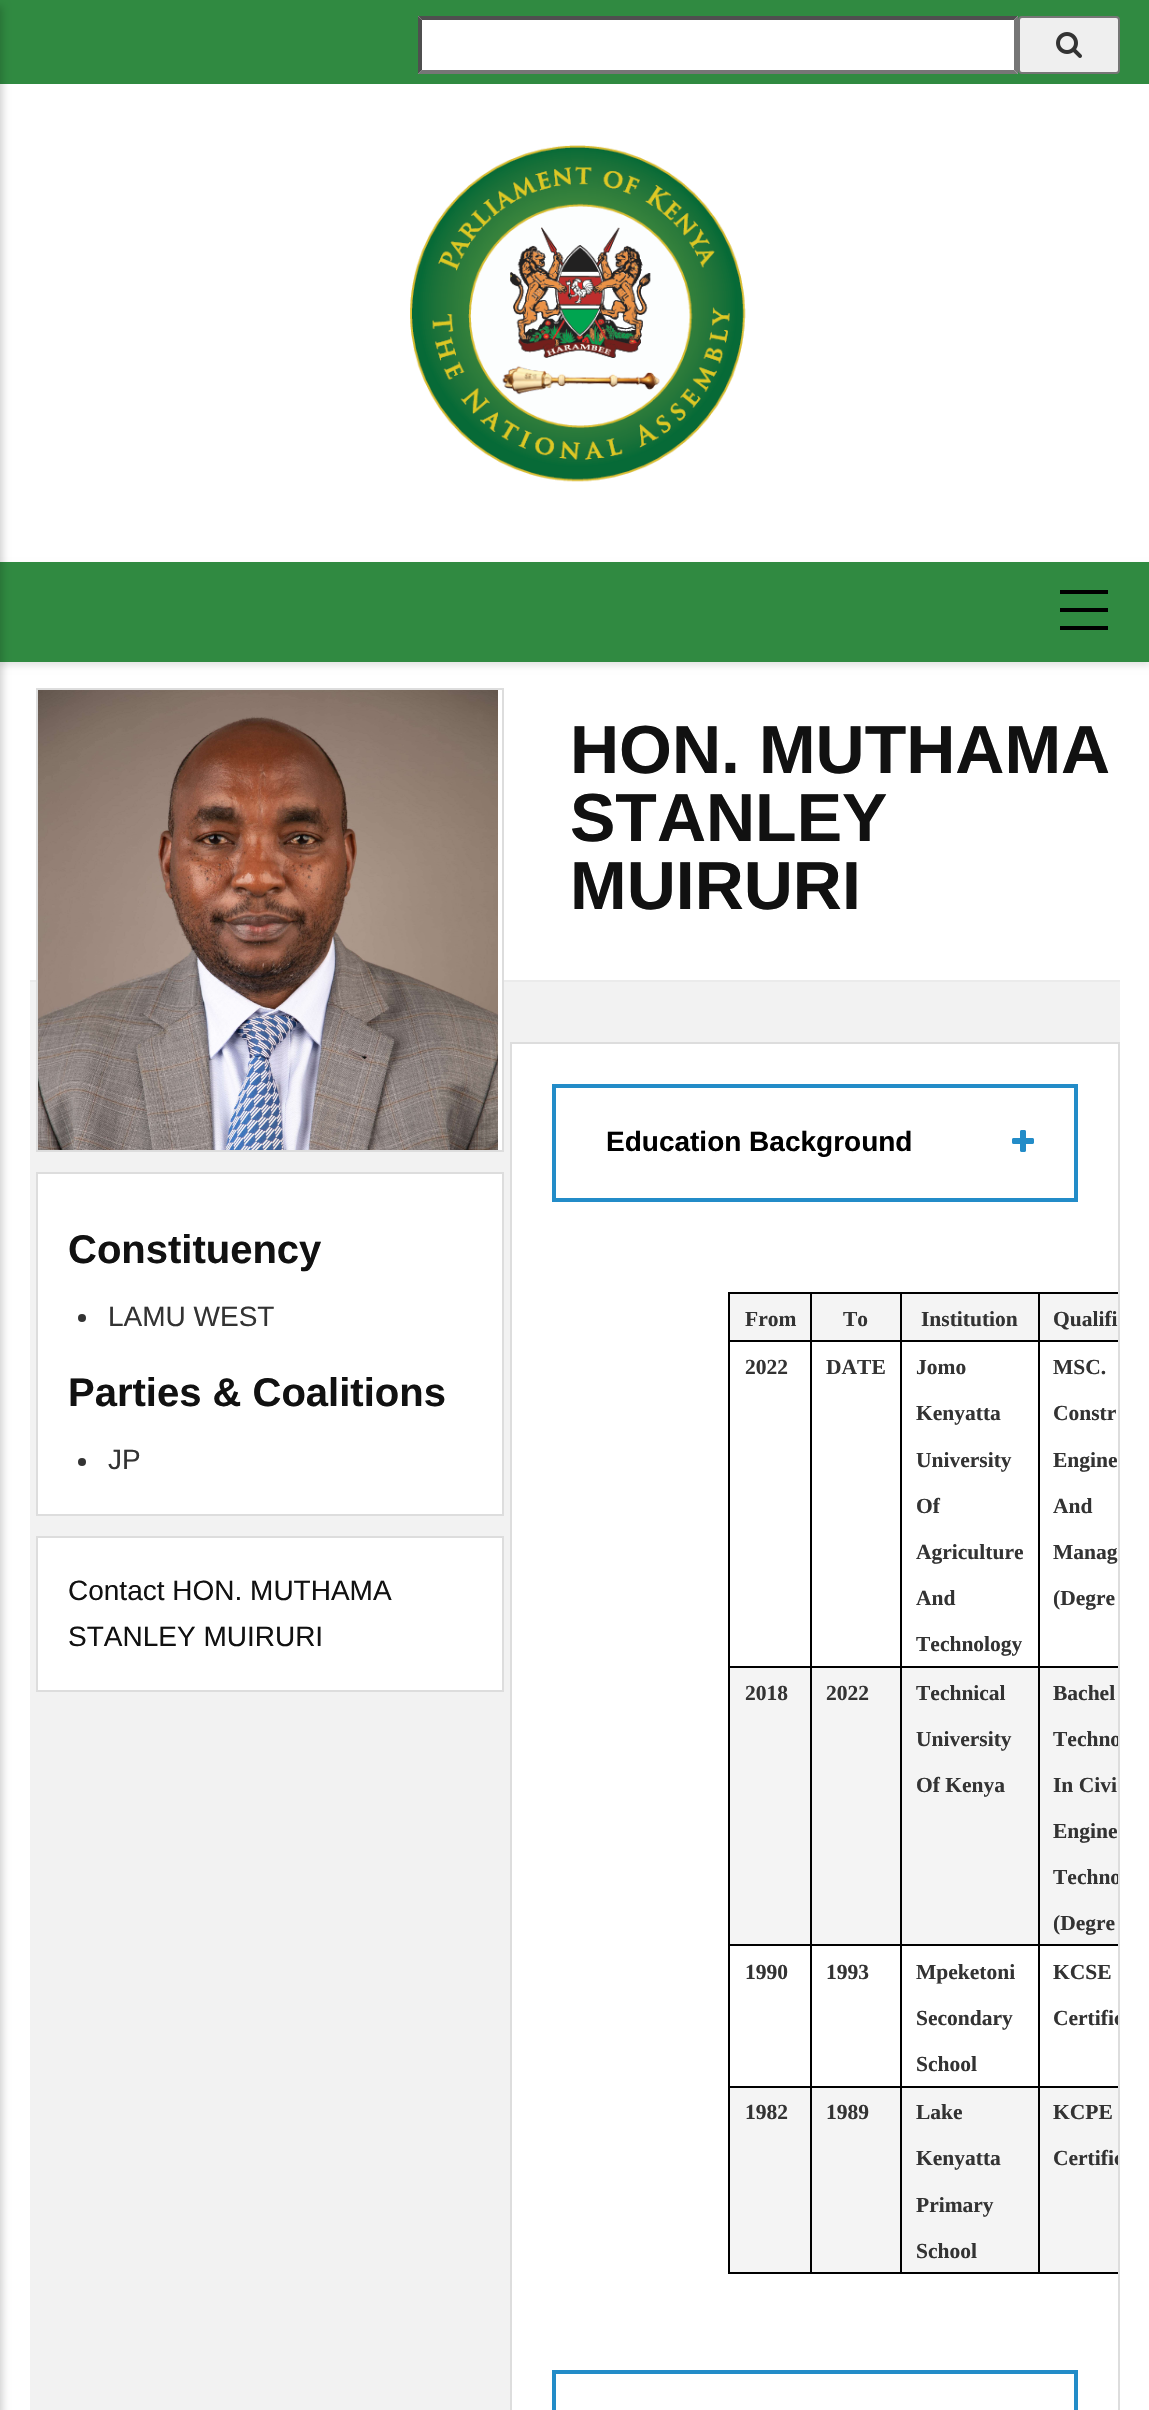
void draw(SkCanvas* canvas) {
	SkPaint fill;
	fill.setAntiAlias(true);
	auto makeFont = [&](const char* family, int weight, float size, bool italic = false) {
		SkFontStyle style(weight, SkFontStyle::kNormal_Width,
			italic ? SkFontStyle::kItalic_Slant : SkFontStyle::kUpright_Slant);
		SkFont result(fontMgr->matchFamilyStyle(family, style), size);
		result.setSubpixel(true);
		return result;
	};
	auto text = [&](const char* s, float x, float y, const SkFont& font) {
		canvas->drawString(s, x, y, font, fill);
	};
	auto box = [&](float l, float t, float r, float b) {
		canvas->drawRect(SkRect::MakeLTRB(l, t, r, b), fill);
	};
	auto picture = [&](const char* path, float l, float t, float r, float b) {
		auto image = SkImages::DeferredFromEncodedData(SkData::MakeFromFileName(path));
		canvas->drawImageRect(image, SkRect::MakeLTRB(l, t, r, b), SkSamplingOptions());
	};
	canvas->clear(0xFFFFFFFF);
	fill.setColor(0xFF308A41);
	box(0, 0, 1149, 84);
	fill.setColor(0xFFFFFFFF);
	box(418, 16, 1018, 74);
	fill.setColor(0xFF4F4F4F);
	canvas->drawPath(SkPathBuilder().moveTo(418, 16).lineTo(1018, 16).lineTo(1014, 20).lineTo(422, 20).close().detach(), fill);
	fill.setColor(0xFF767676);
	canvas->drawPath(SkPathBuilder().moveTo(1018, 16).lineTo(1018, 74).lineTo(1014, 70).lineTo(1014, 20).close().detach(), fill);
	canvas->drawPath(SkPathBuilder().moveTo(1018, 74).lineTo(418, 74).lineTo(422, 70).lineTo(1014, 70).close().detach(), fill);
	fill.setColor(0xFF4F4F4F);
	canvas->drawPath(SkPathBuilder().moveTo(418, 74).lineTo(418, 16).lineTo(422, 20).lineTo(422, 70).close().detach(), fill);
	fill.setColor(0xFFEFEFEF);
	canvas->drawRoundRect(SkRect::MakeLTRB(1019, 17, 1119, 73), 3, 3, fill);
	fill.setStyle(SkPaint::kStroke_Style);
	fill.setStrokeWidth(2);
	fill.setColor(0xFF767676);
	canvas->drawRoundRect(SkRect::MakeLTRB(1019, 17, 1119, 73), 3, 3, fill);
	picture("image0.png", 1056, 32, 1082, 58);
	fill.setStyle(SkPaint::kFill_Style);
	fill.setColor(0x1A000000);
	fill.setMaskFilter(SkMaskFilter::MakeBlur(kNormal_SkBlurStyle, 3));
	canvas->drawRect(SkRect::MakeLTRB(0, 566, 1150, 666), fill);
	fill.setMaskFilter(nullptr);
	fill.setColor(0xFF308A41);
	box(0, 562, 1149, 662);
	fill.setColor(0x33000000);
	fill.setMaskFilter(SkMaskFilter::MakeBlur(kNormal_SkBlurStyle, 4));
	canvas->drawRect(SkRect::MakeLTRB(-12, 6, 2, 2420), fill);
	fill.setMaskFilter(nullptr);
	fill.setColor(0xFF000000);
	box(1060, 590, 1108, 594);
	box(1060, 608, 1108, 612);
	box(1060, 626, 1108, 630);
	picture("image1.png", 410, 145, 746, 482);
	fill.setColor(0xFFF2F2F2);
	box(30, 982, 1120, 2410);
	fill.setColor(0xFFEBEBEB);
	box(30, 980, 1120, 982);
	fill.setColor(0xFFFFFFFF);
	box(498, 980, 502, 1150);
	fill.setStyle(SkPaint::kStroke_Style);
	fill.setColor(0xFFDDDDDD);
	canvas->drawRect(SkRect::MakeLTRB(37, 689, 503, 1151), fill);
	picture("image2.png", 38, 690, 498, 1150);
	fill.setStyle(SkPaint::kFill_Style);
	fill.setColor(0xFFFFFFFF);
	canvas->drawRect(SkRect::MakeLTRB(37, 1173, 503, 1515), fill);
	fill.setStyle(SkPaint::kStroke_Style);
	fill.setColor(0xFFDDDDDD);
	canvas->drawRect(SkRect::MakeLTRB(37, 1173, 503, 1515), fill);
	fill.setStyle(SkPaint::kFill_Style);
	fill.setColor(0xFF333333);
	canvas->drawCircle(82, 1318, 4, fill);
	canvas->drawCircle(82, 1462, 4, fill);
	fill.setColor(0xFFFFFFFF);
	canvas->drawRect(SkRect::MakeLTRB(37, 1537, 503, 1691), fill);
	fill.setStyle(SkPaint::kStroke_Style);
	fill.setColor(0xFFDDDDDD);
	canvas->drawRect(SkRect::MakeLTRB(37, 1537, 503, 1691), fill);
	fill.setStyle(SkPaint::kFill_Style);
	fill.setColor(0xFFFFFFFF);
	canvas->drawRect(SkRect::MakeLTRB(511, 1043, 1119, 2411), fill);
	fill.setStyle(SkPaint::kStroke_Style);
	fill.setColor(0xFFDDDDDD);
	canvas->drawRect(SkRect::MakeLTRB(511, 1043, 1119, 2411), fill);
	fill.setStrokeWidth(4);
	fill.setColor(0xFF238CC8);
	canvas->drawRect(SkRect::MakeLTRB(554, 1086, 1076, 1200), fill);
	picture("image3.png", 1012, 1130, 1034, 1152);
	fill.setStyle(SkPaint::kFill_Style);
	fill.setColor(0xFF000000);
	box(728, 1292, 1118, 1294);
	box(728, 2272, 1118, 2274);
	box(728, 1292, 730, 2274);
	fill.setColor(0xFFF4F4F4);
	box(730, 1294, 810, 1340);
	fill.setColor(0xFF000000);
	box(1038, 2086, 1040, 2274);
	box(1038, 2086, 1118, 2088);
	box(1038, 1944, 1040, 2088);
	box(1038, 1944, 1118, 1946);
	box(1038, 1666, 1040, 1946);
	box(1038, 1666, 1118, 1668);
	box(1038, 1340, 1040, 1668);
	box(1038, 1340, 1118, 1342);
	box(1038, 1292, 1040, 1342);
	box(900, 2086, 902, 2274);
	box(900, 2086, 1040, 2088);
	box(900, 1944, 902, 2088);
	box(900, 1944, 1040, 1946);
	box(900, 1666, 902, 1946);
	box(900, 1666, 1040, 1668);
	box(900, 1340, 902, 1668);
	box(900, 1340, 1040, 1342);
	box(900, 1292, 902, 1342);
	box(810, 2086, 812, 2274);
	box(810, 2086, 902, 2088);
	box(810, 1944, 812, 2088);
	box(810, 1944, 902, 1946);
	box(810, 1666, 812, 1946);
	box(810, 1666, 902, 1668);
	box(810, 1340, 812, 1668);
	box(810, 1340, 902, 1342);
	box(810, 1292, 812, 1342);
	box(728, 1340, 812, 1342);
	fill.setColor(0xFFF4F4F4);
	box(812, 1294, 900, 1340);
	box(902, 1294, 1038, 1340);
	box(1040, 1294, 1118, 1340);
	fill.setColor(0xFF000000);
	box(728, 1666, 812, 1668);
	fill.setColor(0xFFF4F4F4);
	box(730, 1668, 810, 1944);
	fill.setColor(0xFF000000);
	box(728, 1944, 812, 1946);
	fill.setColor(0xFFF4F4F4);
	box(812, 1668, 900, 1944);
	box(902, 1668, 1038, 1944);
	box(1040, 1668, 1118, 1944);
	fill.setColor(0xFF000000);
	box(728, 2086, 812, 2088);
	fill.setColor(0xFFF4F4F4);
	box(730, 2088, 810, 2272);
	box(812, 2088, 900, 2272);
	box(902, 2088, 1038, 2272);
	box(1040, 2088, 1118, 2272);
	fill.setStyle(SkPaint::kStroke_Style);
	fill.setColor(0xFF238CC8);
	canvas->drawRect(SkRect::MakeLTRB(554, 2372, 1076, 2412), fill);
	auto font1 = makeFont("Liberation Sans", 700, 68);
	fill.setStyle(SkPaint::kFill_Style);
	fill.setColor(0xFF111111);
	text("HON. MUTHAMA", 570, 773, font1);
	text("STANLEY", 570, 841, font1);
	text("MUIRURI", 570, 909, font1);
	auto font2 = makeFont("Liberation Sans", 700, 40);
	text("Constituency", 68, 1263, font2);
	auto font3 = makeFont("Liberation Sans", 400, 28);
	fill.setColor(0xFF333333);
	text("LAMU WEST", 108, 1326, font3);
	fill.setColor(0xFF111111);
	text("Parties & Coalitions", 68, 1406, font2);
	fill.setColor(0xFF333333);
	text("JP", 108, 1469, font3);
	fill.setColor(0xFF111111);
	text("Contact HON. MUTHAMA", 68, 1600, font3);
	text("STANLEY MUIRURI", 68, 1646, font3);
	auto font4 = makeFont("Liberation Sans", 700, 28);
	fill.setColor(0xFF000000);
	text("Education Background", 606, 1151, font4);
	auto font5 = makeFont("Liberation Serif", 700, 21.5f);
	fill.setColor(0xFF333333);
	text("From", 745, 1326, font5);
	text("To", 843, 1326, font5);
	text("Institution", 921, 1326, font5);
	text("Qualifi", 1053, 1326, font5);
	text("2022", 745, 1374, font5);
	text("DATE", 826, 1374, font5);
	text("Jomo", 916, 1374, font5);
	text("Kenyatta", 916, 1420, font5);
	text("University", 916, 1467, font5);
	text("Of", 916, 1513, font5);
	text("Agriculture", 916, 1559, font5);
	text("And", 916, 1605, font5);
	text("Technology", 916, 1651, font5);
	text("MSC.", 1053, 1374, font5);
	text("Constr", 1053, 1420, font5);
	text("Engine", 1053, 1467, font5);
	text("And", 1053, 1513, font5);
	text("Manag", 1053, 1559, font5);
	text("(Degre", 1053, 1605, font5);
	text("2018", 745, 1700, font5);
	text("2022", 826, 1700, font5);
	text("Technical", 916, 1700, font5);
	text("University", 916, 1746, font5);
	text("Of Kenya", 916, 1792, font5);
	text("Bachel", 1053, 1700, font5);
	canvas->save();
	canvas->clipRect(SkRect::MakeLTRB(512, 1044, 1118, 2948));
	text("Techno", 1053, 1746, font5);
	canvas->restore();
	text("In Civi", 1053, 1792, font5);
	text("Engine", 1053, 1838, font5);
	canvas->save();
	canvas->clipRect(SkRect::MakeLTRB(512, 1044, 1118, 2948));
	text("Techno", 1053, 1884, font5);
	canvas->restore();
	text("(Degre", 1053, 1930, font5);
	text("1990", 745, 1979, font5);
	text("1993", 826, 1979, font5);
	text("Mpeketoni", 916, 1979, font5);
	text("Secondary", 916, 2025, font5);
	text("School", 916, 2071, font5);
	text("KCSE", 1053, 1979, font5);
	canvas->save();
	canvas->clipRect(SkRect::MakeLTRB(512, 1044, 1118, 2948));
	text("Certific", 1053, 2025, font5);
	canvas->restore();
	text("1982", 745, 2119, font5);
	text("1989", 826, 2119, font5);
	text("Lake", 916, 2119, font5);
	text("Kenyatta", 916, 2165, font5);
	text("Primary", 916, 2212, font5);
	text("School", 916, 2258, font5);
	text("KCPE", 1053, 2119, font5);
	canvas->save();
	canvas->clipRect(SkRect::MakeLTRB(512, 1044, 1118, 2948));
	text("Certific", 1053, 2165, font5);
	canvas->restore();
}
